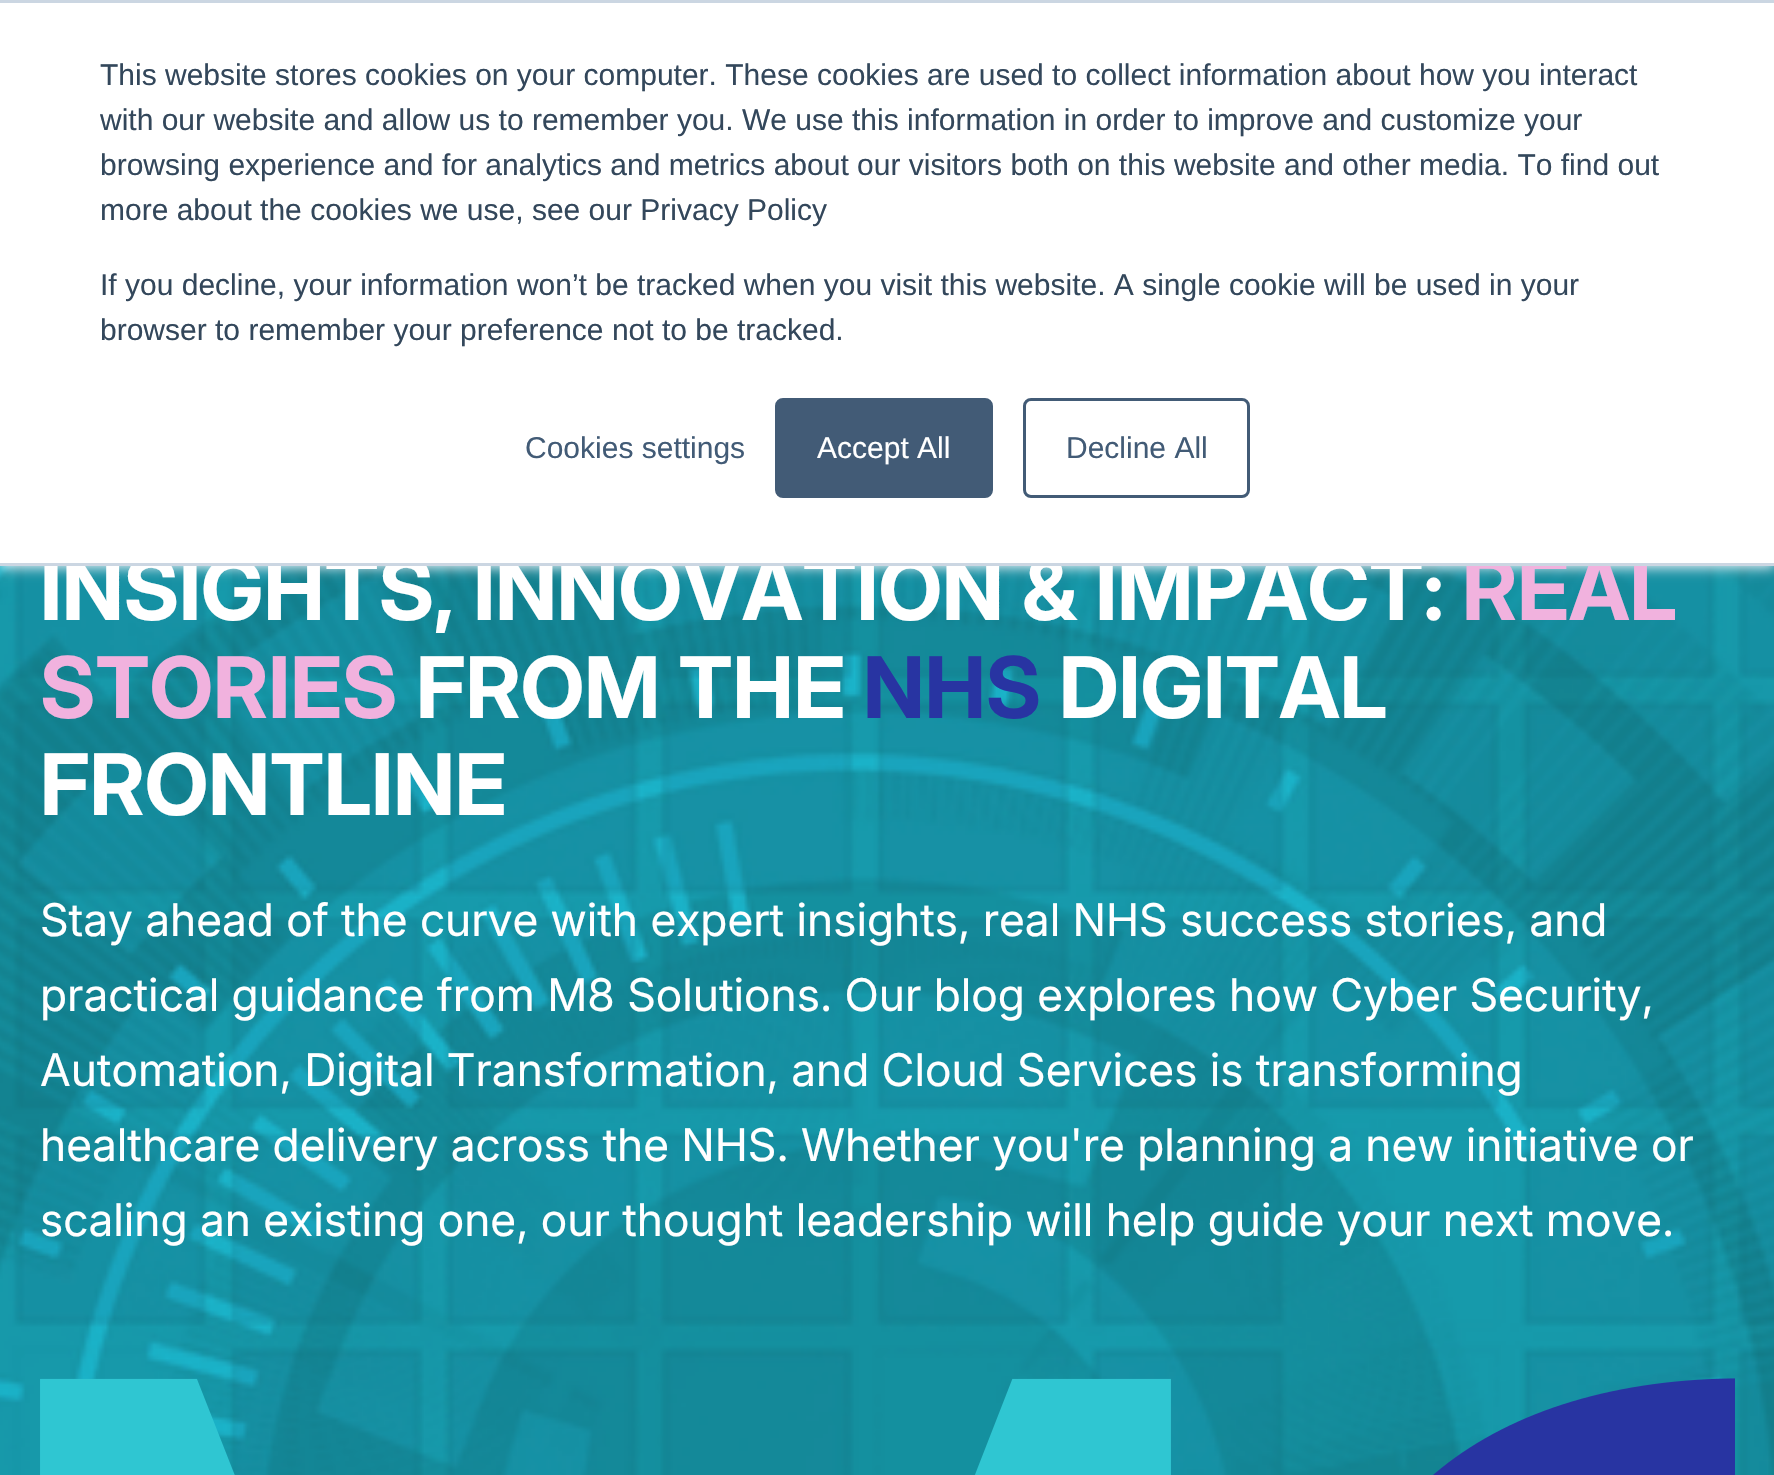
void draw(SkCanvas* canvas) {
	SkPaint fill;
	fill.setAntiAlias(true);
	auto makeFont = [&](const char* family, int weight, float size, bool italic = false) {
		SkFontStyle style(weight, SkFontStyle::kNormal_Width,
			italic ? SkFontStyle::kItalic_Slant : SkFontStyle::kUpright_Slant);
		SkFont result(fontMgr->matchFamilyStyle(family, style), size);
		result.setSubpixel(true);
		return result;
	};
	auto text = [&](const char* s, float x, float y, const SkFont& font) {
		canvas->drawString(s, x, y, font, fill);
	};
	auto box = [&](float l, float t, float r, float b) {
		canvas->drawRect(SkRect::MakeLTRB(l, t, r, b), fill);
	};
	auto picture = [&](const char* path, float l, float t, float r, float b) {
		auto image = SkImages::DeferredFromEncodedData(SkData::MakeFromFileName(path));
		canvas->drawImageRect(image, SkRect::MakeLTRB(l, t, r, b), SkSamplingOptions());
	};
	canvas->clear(0xFFFFFFFF);
	picture("image0.png", 0, 566, 1774, 1475);
	fill.setColor(0xFFEAF0F6);
	fill.setMaskFilter(SkMaskFilter::MakeBlur(kNormal_SkBlurStyle, 6));
	canvas->drawRect(SkRect::MakeLTRB(0, 3, 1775, 568), fill);
	fill.setMaskFilter(nullptr);
	fill.setColor(0xFFCBD6E2);
	box(0, 0, 1774, 3);
	picture("image1.png", 40, 1378, 1735, 1475);
	auto font1 = makeFont("Inter", 700, 85);
	fill.setColor(0xFFFFFFFF);
	text("INSIGHTS, INNOVATION & IMPACT:", 40, 620, font1);
	fill.setColor(0xFFF1B2DE);
	text("REAL", 1462, 620, font1);
	fill.setColor(0xFFFFFFFF);
	box(0, 3, 1774, 563);
	fill.setStyle(SkPaint::kStroke_Style);
	fill.setStrokeWidth(3);
	fill.setColor(0xFF425B76);
	canvas->drawRoundRect(SkRect::MakeLTRB(1024.5f, 399.5f, 1248.5f, 496.5f), 6.5f, 6.5f, fill);
	auto font2 = makeFont("Liberation Sans", 400, 30);
	fill.setStyle(SkPaint::kFill_Style);
	text("Decline All", 1066, 458, font2);
	canvas->drawRoundRect(SkRect::MakeLTRB(776.5f, 399.5f, 991.5f, 496.5f), 6.5f, 6.5f, fill);
	fill.setStyle(SkPaint::kStroke_Style);
	canvas->drawRoundRect(SkRect::MakeLTRB(776.5f, 399.5f, 991.5f, 496.5f), 6.5f, 6.5f, fill);
	fill.setStyle(SkPaint::kFill_Style);
	fill.setColor(0xFFFFFFFF);
	text("Accept All", 817, 458, font2);
	fill.setColor(0xFF425B76);
	text("Cookies settings", 525, 458, font2);
	fill.setColor(0xFF33475B);
	text("browser to remember your preference not to be tracked.", 100, 340, font2);
	text("If you decline, your information won’t be tracked when you visit this website. A single cookie will be used in your", 100, 295, font2);
	text("more about the cookies we use, see our Privacy Policy", 100, 220, font2);
	text("browsing experience and for analytics and metrics about our visitors both on this website and other media. To find out", 100, 175, font2);
	text("with our website and allow us to remember you. We use this information in order to improve and customize your", 100, 130, font2);
	text("This website stores cookies on your computer. These cookies are used to collect information about how you interact", 100, 85, font2);
	fill.setColor(0xFFCBD6E2);
	box(0, 563, 1774, 566);
	fill.setColor(0xFFF1B2DE);
	text("STORIES", 40, 718, font1);
	fill.setColor(0xFFFFFFFF);
	text("FROM THE", 416, 718, font1);
	fill.setColor(0xFF2834A2);
	text("NHS", 863, 718, font1);
	fill.setColor(0xFFFFFFFF);
	text("DIGITAL", 1059, 718, font1);
	text("FRONTLINE", 40, 815, font1);
	auto font3 = makeFont("Inter", 400, 45);
	text("Stay ahead of the curve with expert insights, real NHS success stories, and", 40, 936, font3);
	text("practical guidance from M8 Solutions. Our blog explores how Cyber Security,", 40, 1011, font3);
	text("Automation, Digital Transformation, and Cloud Services is transforming", 40, 1086, font3);
	text("healthcare delivery across the NHS. Whether you're planning a new initiative or", 40, 1161, font3);
	text("scaling an existing one, our thought leadership will help guide your next move.", 40, 1236, font3);
}
